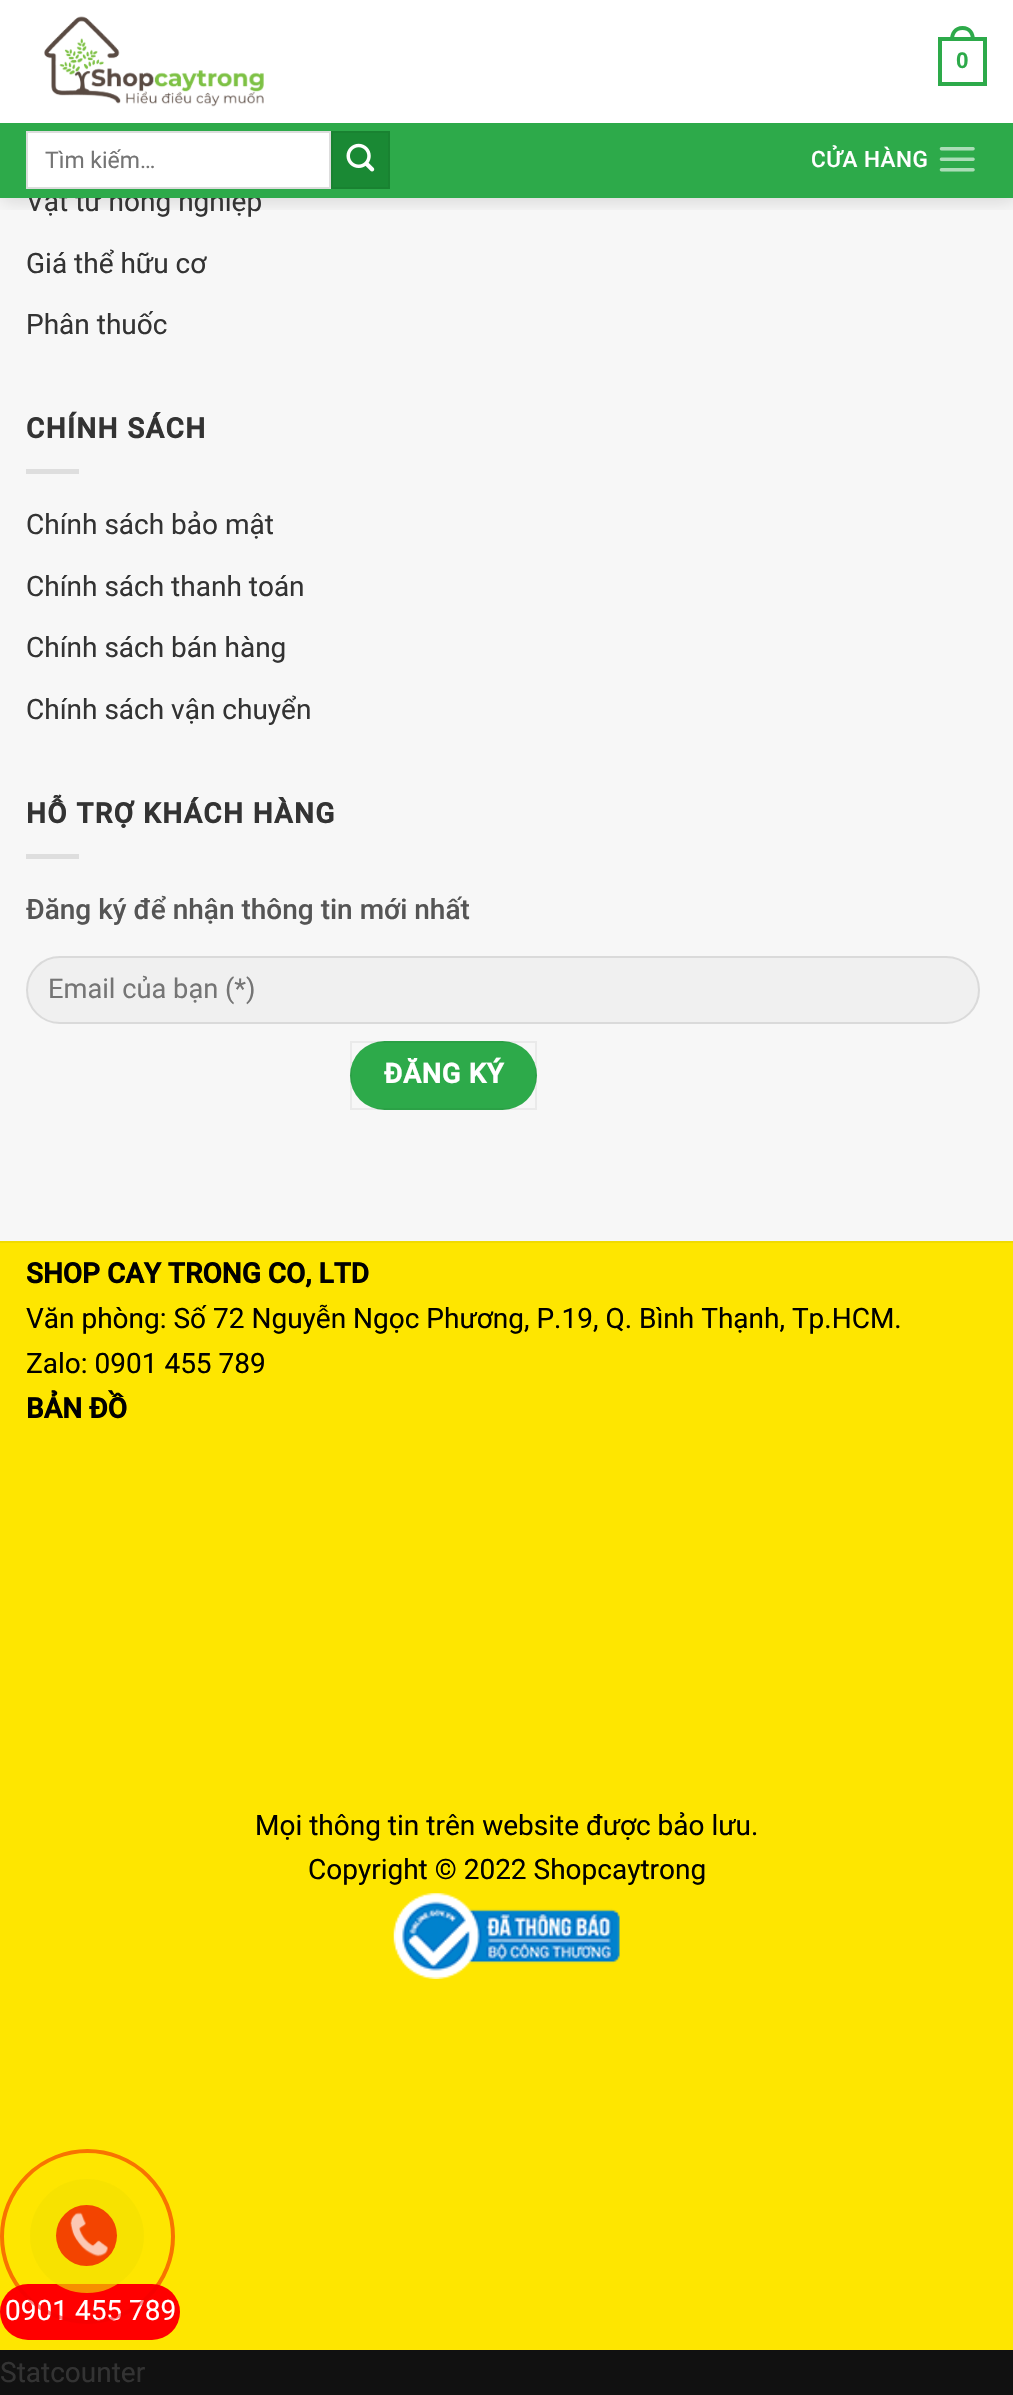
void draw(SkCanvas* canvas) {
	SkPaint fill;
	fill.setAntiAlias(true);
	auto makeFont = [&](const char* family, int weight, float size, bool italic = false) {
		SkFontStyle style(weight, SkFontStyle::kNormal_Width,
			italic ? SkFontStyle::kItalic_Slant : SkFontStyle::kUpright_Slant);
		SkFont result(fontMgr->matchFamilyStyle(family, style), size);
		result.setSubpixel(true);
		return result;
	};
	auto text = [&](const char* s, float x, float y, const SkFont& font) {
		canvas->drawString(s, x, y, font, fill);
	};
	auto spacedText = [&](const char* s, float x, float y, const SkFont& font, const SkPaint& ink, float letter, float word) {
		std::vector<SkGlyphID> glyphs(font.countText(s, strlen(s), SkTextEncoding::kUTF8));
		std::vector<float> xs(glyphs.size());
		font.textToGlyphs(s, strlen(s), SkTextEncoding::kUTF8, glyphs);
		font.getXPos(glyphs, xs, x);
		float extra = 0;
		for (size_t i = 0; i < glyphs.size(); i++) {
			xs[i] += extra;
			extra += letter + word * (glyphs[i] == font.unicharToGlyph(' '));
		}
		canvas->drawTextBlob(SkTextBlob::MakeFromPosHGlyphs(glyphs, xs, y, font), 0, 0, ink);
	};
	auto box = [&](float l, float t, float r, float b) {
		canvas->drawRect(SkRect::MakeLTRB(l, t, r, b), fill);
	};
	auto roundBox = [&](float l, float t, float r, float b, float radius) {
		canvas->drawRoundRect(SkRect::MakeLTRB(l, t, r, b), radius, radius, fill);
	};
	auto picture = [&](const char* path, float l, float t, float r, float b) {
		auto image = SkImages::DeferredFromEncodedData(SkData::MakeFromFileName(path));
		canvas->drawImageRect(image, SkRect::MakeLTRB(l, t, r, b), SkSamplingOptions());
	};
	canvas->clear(0xFF111111);
	fill.setColor(0xFFF7F7F7);
	box(0, 0, 1013, 1241);
	fill.setColor(0xFFDEDEDE);
	box(26, 84, 79, 89);
	canvas->save();
	canvas->clipRect(SkRect::MakeLTRB(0, 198, 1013, 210));
	fill.setColor(0x26000000);
	fill.setMaskFilter(SkMaskFilter::MakeBlur(kNormal_SkBlurStyle, 9));
	canvas->drawRect(SkRect::MakeLTRB(2, 2, 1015, 200), fill);
	fill.setMaskFilter(nullptr);
	canvas->restore();
	fill.setColor(0xE6FFFFFF);
	box(0, 0, 1013, 123);
	box(26, 84, 79, 89);
	picture("image0.png", 44, 16, 264, 107);
	fill.setStyle(SkPaint::kStroke_Style);
	fill.setStrokeWidth(4);
	fill.setColor(0xFF2DAA4A);
	canvas->drawRect(SkRect::MakeLTRB(940, 39, 985, 84), fill);
	fill.setStyle(SkPaint::kFill_Style);
	canvas->drawPath(SkPathBuilder(SkPathFillType::kEvenOdd).moveTo(962.5f, 26).cubicTo(971, 26, 975, 32.5f, 975, 40).lineTo(950, 40).cubicTo(950, 32.5f, 954, 26, 962.5f, 26).close().moveTo(962.5f, 30).cubicTo(969, 30, 971, 34.5f, 971, 40).lineTo(954, 40).cubicTo(954, 34.5f, 956, 30, 962.5f, 30).close().detach(), fill);
	fill.setColor(0xFFDEDEDE);
	box(26, 469, 79, 474);
	box(26, 854, 79, 859);
	fill.setColor(0xFFF0F0F0);
	roundBox(26, 956, 980, 1024, 34);
	fill.setStyle(SkPaint::kStroke_Style);
	fill.setStrokeWidth(2);
	fill.setColor(0x17000000);
	canvas->drawRoundRect(SkRect::MakeLTRB(27, 957, 979, 1023), 33, 33, fill);
	fill.setStyle(SkPaint::kFill_Style);
	fill.setColor(0xFF2DAA4A);
	roundBox(350, 1041, 537, 1110, 34.5f);
	fill.setStyle(SkPaint::kStroke_Style);
	fill.setColor(0x0D000000);
	canvas->drawRect(SkRect::MakeLTRB(351, 1042, 536, 1109), fill);
	fill.setStyle(SkPaint::kFill_Style);
	fill.setColor(0xFFFEE600);
	box(0, 1243, 1013, 2350);
	fill.setColor(0xFFF1DB00);
	box(0, 1241, 1013, 1243);
	picture("image3.png", 393, 1893, 620, 1979);
	fill.setColor(0xFFFF0000);
	roundBox(0, 2284, 180, 2340, 28);
	auto font1 = makeFont("Liberation Sans", 700, 22.5f);
	fill.setColor(0xFF2DAA4A);
	text("0", 956, 68, font1);
	auto font2 = makeFont("Roboto", 400, 28);
	fill.setColor(0xFF333333);
	text("Vật tư nông nghiệp", 26, 211, font2);
	fill.setColor(0xFF2DAA4A);
	box(0, 123, 1013, 198);
	picture("image2.png", 939, 147, 975, 172);
	auto font3 = makeFont("Roboto", 500, 22.5f);
	fill.setColor(0xFFFFFFFF);
	spacedText("CỬA HÀNG", 811, 167, font3, fill, 0.5f, 0);
	fill.setColor(0xFF1A8934);
	canvas->drawRect(SkRect::MakeLTRB(332, 132, 389, 188), fill);
	fill.setStyle(SkPaint::kStroke_Style);
	fill.setColor(0xFF198231);
	canvas->drawRect(SkRect::MakeLTRB(332, 132, 389, 188), fill);
	picture("image1.png", 346, 143, 375, 172);
	fill.setStyle(SkPaint::kFill_Style);
	fill.setColor(0xFFFFFFFF);
	canvas->drawRect(SkRect::MakeLTRB(27, 132, 330, 188), fill);
	fill.setStyle(SkPaint::kStroke_Style);
	fill.setColor(0xFFDDDDDD);
	canvas->drawRect(SkRect::MakeLTRB(27, 132, 330, 188), fill);
	auto font4 = makeFont("Roboto", 400, 23);
	fill.setStyle(SkPaint::kFill_Style);
	fill.setColor(0xFF757575);
	text("Tìm kiếm…", 45, 168, font4);
	fill.setColor(0xFF333333);
	text("Giá thể hữu cơ", 26, 273, font2);
	text("Phân thuốc", 26, 334, font2);
	auto font5 = makeFont("Roboto", 700, 28);
	spacedText("CHÍNH SÁCH", 26, 438, font5, fill, 1.4f, 0);
	text("Chính sách bảo mật", 26, 534, font2);
	text("Chính sách thanh toán", 26, 596, font2);
	text("Chính sách bán hàng", 26, 657, font2);
	text("Chính sách vận chuyển", 26, 719, font2);
	spacedText("HỖ TRỢ KHÁCH HÀNG", 26, 823, font5, fill, 1.4f, 0);
	auto font6 = makeFont("Roboto", 500, 28);
	fill.setColor(0xFF555555);
	text("Đăng ký để nhận thông tin mới nhất", 26, 919, font6);
	auto font7 = makeFont("Roboto", 400, 27.25f);
	fill.setColor(0xFF757575);
	text("Email của bạn (*)", 48, 998, font7);
	auto font8 = makeFont("Roboto", 700, 27.25f);
	fill.setColor(0xFFFFFFFF);
	spacedText("ĐĂNG KÝ", 384, 1083, font8, fill, 0.75f, 0);
	fill.setColor(0xFF000000);
	text("SHOP CAY TRONG CO, LTD", 26, 1283, font5);
	text("Văn phòng: Số 72 Nguyễn Ngọc Phương, P.19, Q. Bình Thạnh, Tp.HCM.", 26, 1328, font2);
	text("Zalo: 0901 455 789", 26, 1373, font2);
	text("BẢN ĐỒ", 26, 1418, font5);
	text("Mọi thông tin trên website được bảo lưu.", 255, 1835, font2);
	text("Copyright © 2022 Shopcaytrong", 308, 1879, font2);
	fill.setColor(0xFFFFFFFF);
	text("0901 455 789", 5, 2320, font2);
	fill.setStyle(SkPaint::kStroke_Style);
	fill.setStrokeWidth(4);
	fill.setColor(0x80F20000);
	canvas->drawCircle(87.5f, 2236.5f, 85.5f, fill);
	fill.setStyle(SkPaint::kFill_Style);
	fill.setColor(0xA3F2DF00);
	canvas->drawCircle(87, 2236, 57, fill);
	fill.setColor(0xFFF34400);
	canvas->drawCircle(86.5f, 2235.5f, 30.5f, fill);
	picture("image4.png", 70, 2212, 108, 2257);
	fill.setColor(0xFF333333);
	text("Statcounter", 0, 2382, font2);
}
